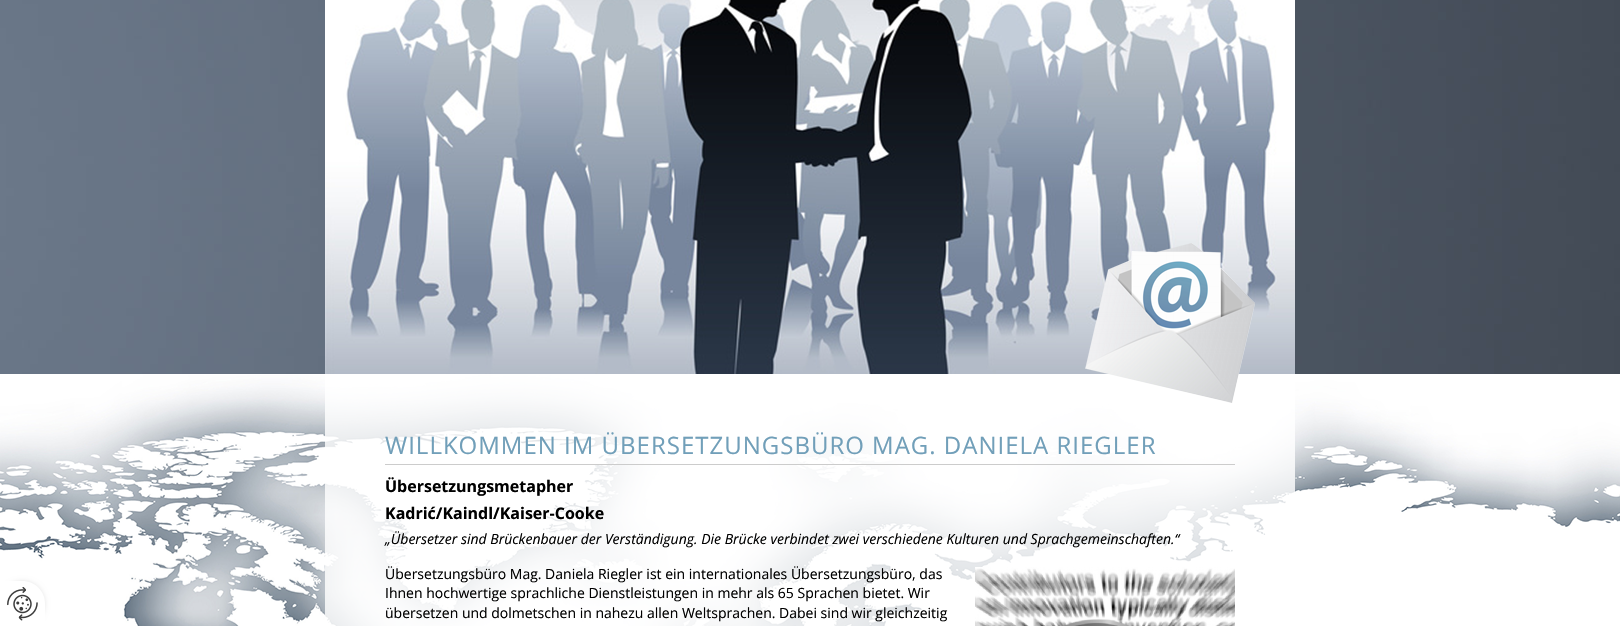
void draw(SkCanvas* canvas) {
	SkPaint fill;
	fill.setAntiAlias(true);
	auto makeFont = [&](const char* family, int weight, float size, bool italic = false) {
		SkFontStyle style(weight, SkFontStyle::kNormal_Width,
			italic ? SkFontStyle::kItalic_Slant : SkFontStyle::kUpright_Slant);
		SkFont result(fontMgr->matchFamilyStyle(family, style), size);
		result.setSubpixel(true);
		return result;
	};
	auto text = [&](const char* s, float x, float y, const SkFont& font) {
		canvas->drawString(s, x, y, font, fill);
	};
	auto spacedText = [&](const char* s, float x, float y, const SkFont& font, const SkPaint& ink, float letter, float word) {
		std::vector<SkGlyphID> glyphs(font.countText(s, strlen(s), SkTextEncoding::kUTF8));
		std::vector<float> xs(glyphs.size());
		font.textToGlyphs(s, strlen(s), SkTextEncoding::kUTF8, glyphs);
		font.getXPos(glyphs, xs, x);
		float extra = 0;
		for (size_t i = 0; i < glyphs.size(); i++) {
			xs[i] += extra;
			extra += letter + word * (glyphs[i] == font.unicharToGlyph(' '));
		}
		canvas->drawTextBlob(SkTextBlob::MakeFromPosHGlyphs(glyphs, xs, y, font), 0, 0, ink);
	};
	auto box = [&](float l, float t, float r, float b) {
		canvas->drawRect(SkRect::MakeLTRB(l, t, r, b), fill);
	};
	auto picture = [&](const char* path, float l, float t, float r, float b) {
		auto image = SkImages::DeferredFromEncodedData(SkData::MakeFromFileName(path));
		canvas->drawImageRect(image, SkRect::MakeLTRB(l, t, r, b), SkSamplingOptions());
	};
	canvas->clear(0xFFFFFFFF);
	picture("image4.png", 0, 375, 1620, 626);
	fill.setColor(0x1A000000);
	fill.setMaskFilter(SkMaskFilter::MakeBlur(kNormal_SkBlurStyle, 2.5f));
	canvas->drawRoundRect(SkRect::MakeLTRB(0, 581, 45, 626), 22.5f, 22.5f, fill);
	fill.setMaskFilter(nullptr);
	fill.setColor(0xFFFFFFFF);
	canvas->drawPath(SkPathBuilder().moveTo(2, 581).lineTo(22.5f, 581).cubicTo(35, 581, 45, 591, 45, 603.5f).lineTo(45, 624).cubicTo(45, 625, 44, 626, 43, 626).lineTo(2, 626).cubicTo(1, 626, 0, 625, 0, 624).lineTo(0, 583).cubicTo(0, 582, 1, 581, 2, 581).close().detach(), fill);
	picture("image0.png", 7, 587, 38, 621);
	picture("image1.png", 0, 0, 1620, 374);
	picture("image2.png", 325, 0, 1295, 374);
	fill.setColor(0xCCFFFFFF);
	box(325, 375, 1295, 626);
	picture("image3.png", 1085, 243, 1255, 403);
	fill.setColor(0xFFCCCCCC);
	box(385, 464, 1235, 465);
	picture("image5.png", 975, 567, 1235, 626);
	auto font1 = makeFont("Open Sans", 400, 24);
	fill.setColor(0xFF719FB9);
	spacedText("WILLKOMMEN IM ÜBERSETZUNGSBÜRO MAG. DANIELA RIEGLER", 385, 454, font1, fill, 1, 0);
	auto font2 = makeFont("Open Sans", 700, 16);
	fill.setColor(0xFF000000);
	text("Übersetzungsmetapher", 385, 492, font2);
	text("Kadrić/Kaindl/Kaiser-Cooke", 385, 519, font2);
	auto font3 = makeFont("Open Sans", 400, 14, true);
	text("„Übersetzer sind Brückenbauer der Verständigung. Die Brücke verbindet zwei verschiedene Kulturen und Sprachgemeinschaften.“", 385, 544, font3);
	auto font4 = makeFont("Open Sans", 400, 14);
	text("Übersetzungsbüro Mag. Daniela Riegler ist ein internationales Übersetzungsbüro, das", 385, 579, font4);
	text("Ihnen hochwertige sprachliche Dienstleistungen in mehr als 65 Sprachen bietet. Wir", 385, 598, font4);
	text("übersetzen und dolmetschen in nahezu allen Weltsprachen. Dabei sind wir gleichzeitig", 385, 618, font4);
}
